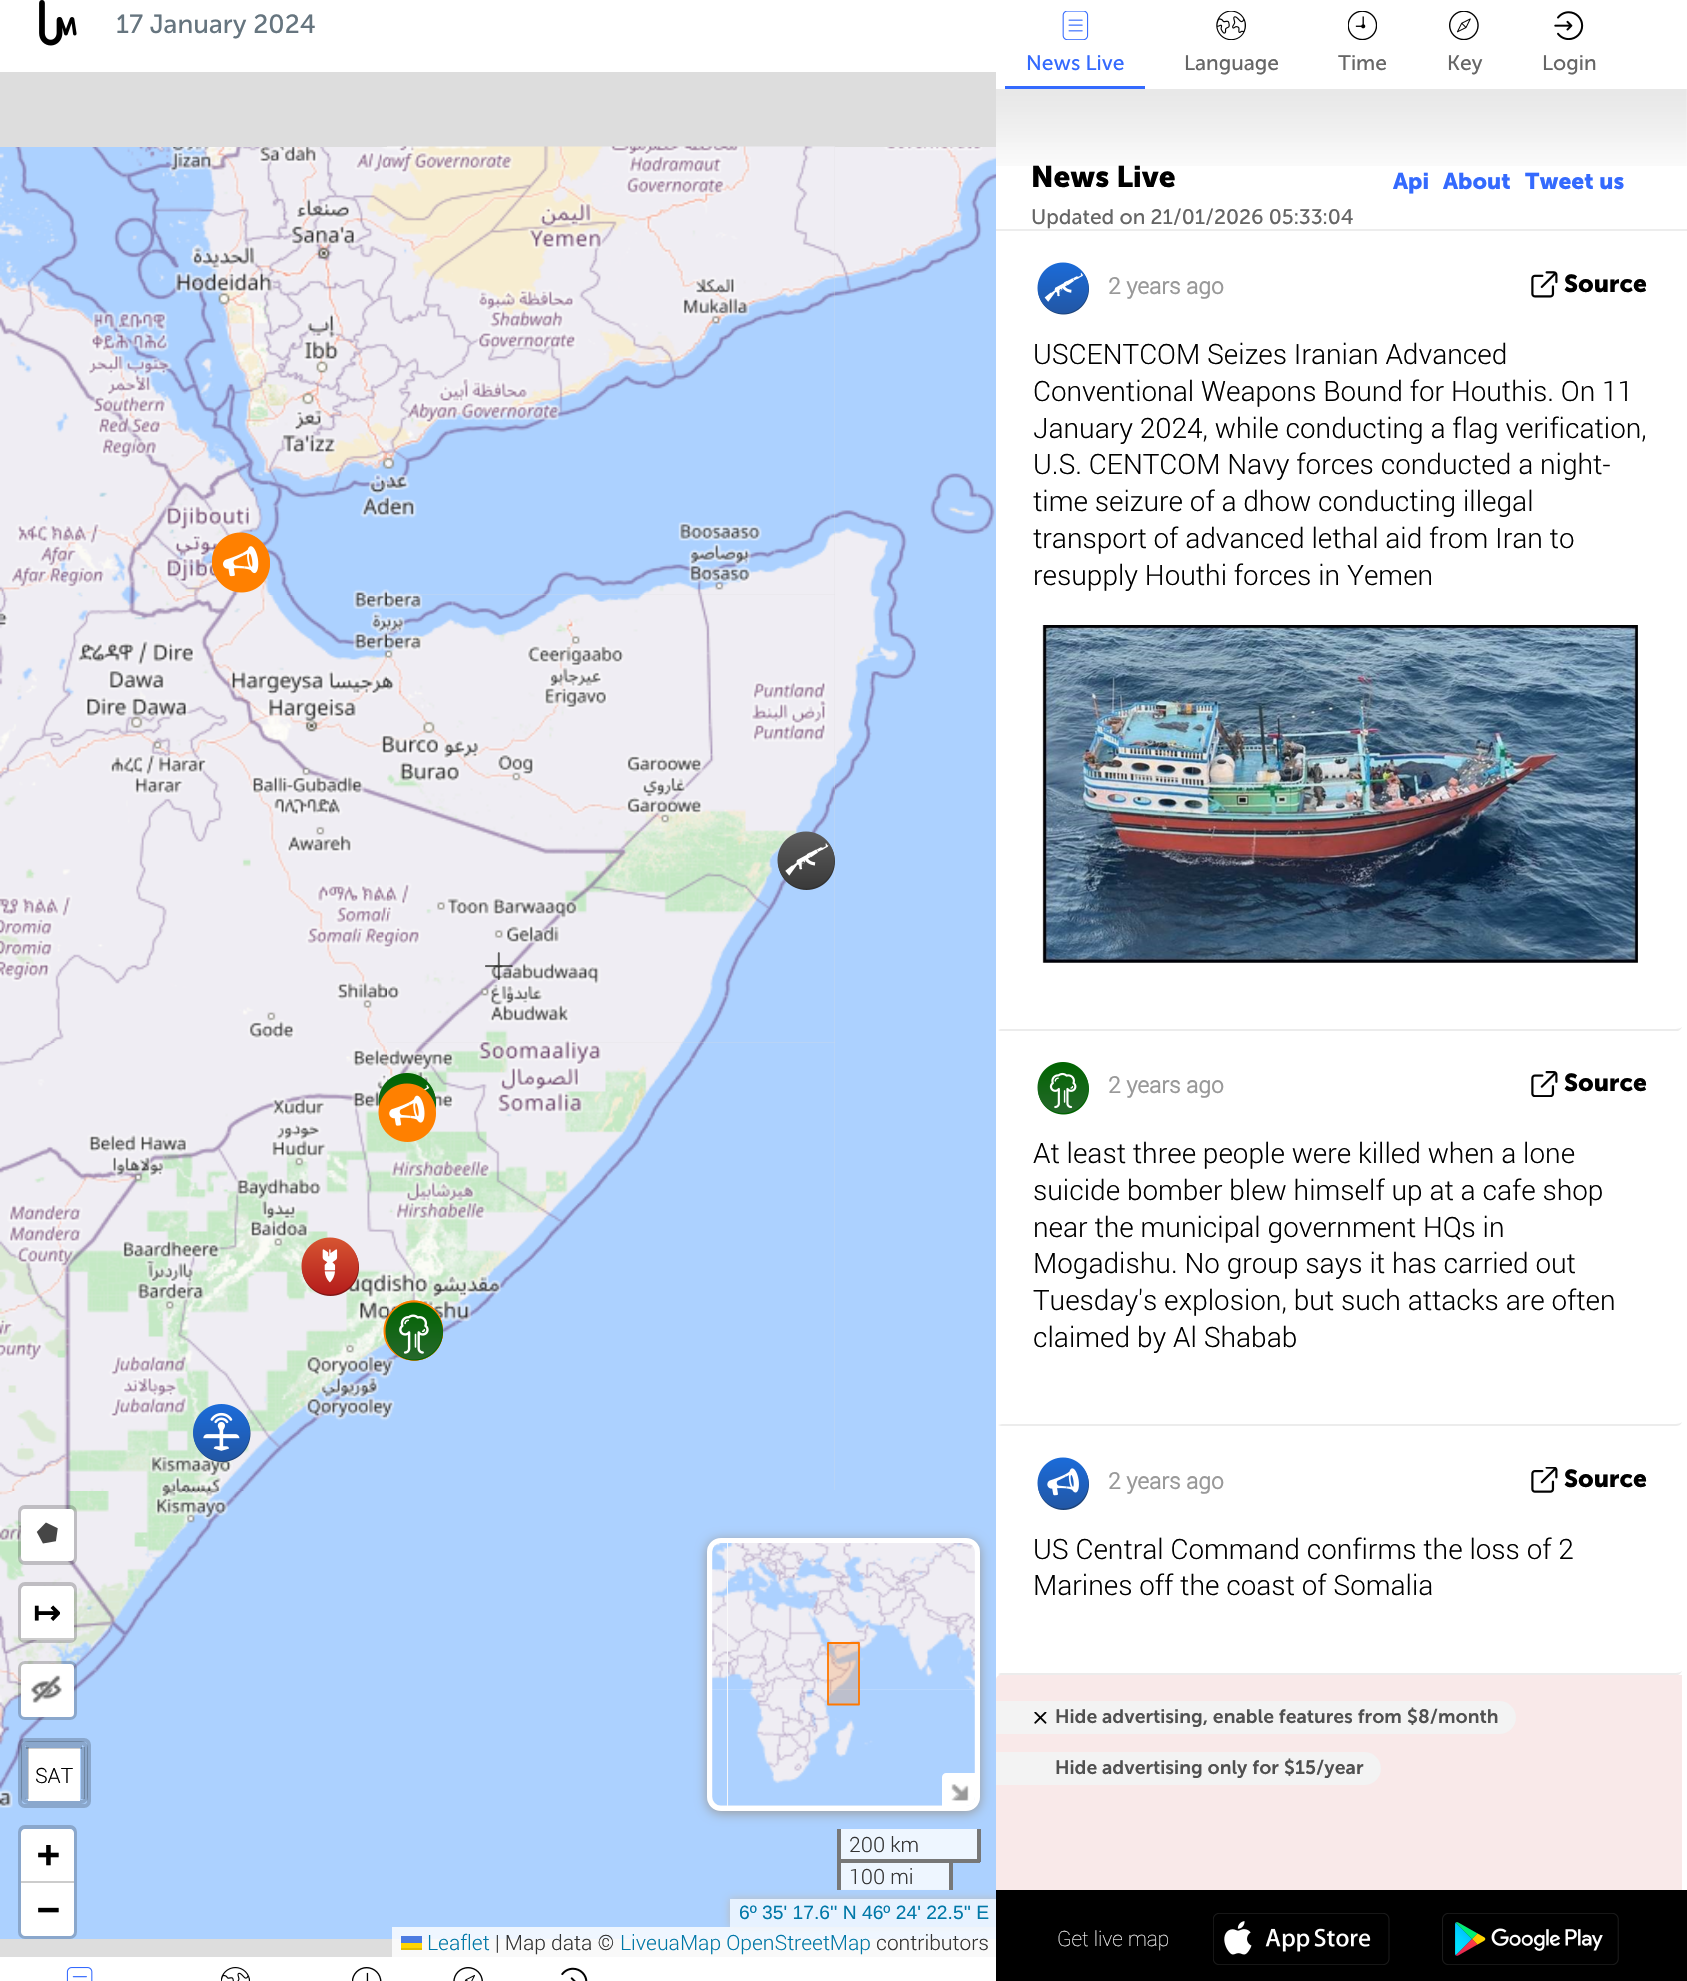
void draw(SkCanvas* canvas) {
	SkPaint fill;
	fill.setAntiAlias(true);
	auto makeFont = [&](const char* family, int weight, float size, bool italic = false) {
		SkFontStyle style(weight, SkFontStyle::kNormal_Width,
			italic ? SkFontStyle::kItalic_Slant : SkFontStyle::kUpright_Slant);
		SkFont result(fontMgr->matchFamilyStyle(family, style), size);
		result.setSubpixel(true);
		return result;
	};
	auto text = [&](const char* s, float x, float y, const SkFont& font) {
		canvas->drawString(s, x, y, font, fill);
	};
	auto box = [&](float l, float t, float r, float b) {
		canvas->drawRect(SkRect::MakeLTRB(l, t, r, b), fill);
	};
	auto roundBox = [&](float l, float t, float r, float b, float radius) {
		canvas->drawRoundRect(SkRect::MakeLTRB(l, t, r, b), radius, radius, fill);
	};
	auto picture = [&](const char* path, float l, float t, float r, float b) {
		auto image = SkImages::DeferredFromEncodedData(SkData::MakeFromFileName(path));
		canvas->drawImageRect(image, SkRect::MakeLTRB(l, t, r, b), SkSamplingOptions());
	};
	canvas->clear(0xFFFFFFFF);
	picture("image0.png", 39, 0, 77, 46);
	fill.setColor(0xFFDDDDDD);
	box(0, 72, 996, 1957);
	picture("image1.png", 0, 147, 387, 595);
	picture("image5.png", 387, 594, 835, 1043);
	picture("image2.png", 387, 146, 835, 595);
	picture("image3.png", 835, 147, 996, 595);
	picture("image4.png", 0, 595, 387, 1043);
	picture("image6.png", 835, 595, 996, 1043);
	picture("image7.png", 0, 1043, 387, 1491);
	picture("image8.png", 387, 1042, 835, 1490);
	fill.setColor(0xFFACD1FF);
	box(835, 1043, 996, 1939);
	picture("image9.png", 0, 1491, 387, 1939);
	box(387, 1490, 835, 1939);
	fill.setColor(0xFFEEF6FF);
	box(841, 1863, 949, 1890);
	picture("image10.png", 212, 532, 270, 577);
	picture("image11.png", 212, 544, 270, 593);
	picture("image12.png", 777, 831, 835, 890);
	picture("image13.png", 378, 1073, 436, 1110);
	picture("image14.png", 378, 1083, 436, 1142);
	picture("image15.png", 301, 1237, 359, 1296);
	picture("image16.png", 387, 1300, 443, 1352);
	picture("image17.png", 387, 1300, 443, 1352);
	picture("image19.png", 383, 1307, 435, 1361);
	picture("image20.png", 391, 1314, 443, 1361);
	picture("image21.png", 394, 1314, 443, 1361);
	picture("image22.png", 403, 1325, 443, 1361);
	picture("image18.png", 385, 1302, 443, 1361);
	picture("image23.png", 193, 1404, 251, 1462);
	picture("image24.png", 485, 952, 513, 980);
	fill.setStyle(SkPaint::kStroke_Style);
	fill.setStrokeWidth(4);
	fill.setColor(0x33000000);
	canvas->drawRoundRect(SkRect::MakeLTRB(20, 1507, 75, 1563), 5, 5, fill);
	fill.setStyle(SkPaint::kFill_Style);
	fill.setColor(0xFFFFFFFF);
	roundBox(21, 1509, 74, 1561, 4);
	picture("image25.png", 36, 1522, 58, 1544);
	fill.setStyle(SkPaint::kStroke_Style);
	fill.setColor(0x33000000);
	canvas->drawRoundRect(SkRect::MakeLTRB(20, 1584, 75, 1641), 5, 5, fill);
	fill.setStyle(SkPaint::kFill_Style);
	fill.setColor(0xFFFFFFFF);
	canvas->drawPath(SkPathBuilder().moveTo(25, 1586).lineTo(70, 1586).cubicTo(72, 1586, 74, 1588, 74, 1590).lineTo(74, 1640).lineTo(21, 1640).lineTo(21, 1590).cubicTo(21, 1588, 23, 1586, 25, 1586).close().detach(), fill);
	fill.setColor(0xFFCCCCCC);
	box(21, 1638, 74, 1640);
	fill.setStyle(SkPaint::kStroke_Style);
	fill.setColor(0x33000000);
	canvas->drawRoundRect(SkRect::MakeLTRB(20, 1663, 75, 1718), 5, 5, fill);
	fill.setStyle(SkPaint::kFill_Style);
	fill.setColor(0xFFFFFFFF);
	roundBox(21, 1664, 74, 1717, 4);
	picture("image26.png", 31, 1675, 62, 1703);
	fill.setStyle(SkPaint::kStroke_Style);
	fill.setColor(0x33000000);
	canvas->drawRoundRect(SkRect::MakeLTRB(20, 1740, 89, 1806), 5, 5, fill);
	canvas->drawRoundRect(SkRect::MakeLTRB(23, 1743, 86, 1802), 5, 5, fill);
	fill.setStyle(SkPaint::kFill_Style);
	fill.setColor(0xFFFFFFFF);
	canvas->drawPath(SkPathBuilder().moveTo(28, 1748).lineTo(80, 1748).lineTo(80, 1801).lineTo(28, 1801).lineTo(28, 1797).close().detach(), fill);
	fill.setColor(0x33000000);
	box(26, 1745, 82, 1749);
	box(81, 1747, 85, 1799);
	box(25, 1747, 29, 1799);
	fill.setStyle(SkPaint::kStroke_Style);
	fill.setColor(0xFF8AA7CC);
	canvas->drawRoundRect(SkRect::MakeLTRB(20, 1827, 75, 1937), 5, 5, fill);
	fill.setStyle(SkPaint::kFill_Style);
	fill.setColor(0xFFFFFFFF);
	canvas->drawPath(SkPathBuilder().moveTo(25, 1829).lineTo(70, 1829).cubicTo(72, 1829, 74, 1831, 74, 1833).lineTo(74, 1883).lineTo(21, 1883).lineTo(21, 1833).cubicTo(21, 1831, 23, 1829, 25, 1829).close().detach(), fill);
	fill.setColor(0xFFCCCCCC);
	box(21, 1881, 74, 1883);
	fill.setColor(0xFFFFFFFF);
	canvas->drawPath(SkPathBuilder().moveTo(21, 1883).lineTo(74, 1883).lineTo(74, 1932).cubicTo(74, 1934, 72, 1936, 70, 1936).lineTo(25, 1936).cubicTo(23, 1936, 21, 1934, 21, 1932).close().detach(), fill);
	fill.setColor(0xFF999999);
	fill.setMaskFilter(SkMaskFilter::MakeBlur(kNormal_SkBlurStyle, 6));
	canvas->drawRoundRect(SkRect::MakeLTRB(707, 1540, 980, 1813), 14, 14, fill);
	fill.setMaskFilter(nullptr);
	fill.setColor(0xFFF8F8F9);
	canvas->drawRoundRect(SkRect::MakeLTRB(709.5f, 1540.5f, 977.5f, 1808.5f), 11.5f, 11.5f, fill);
	fill.setStyle(SkPaint::kStroke_Style);
	fill.setStrokeWidth(5);
	fill.setColor(0xFFFFFFFF);
	canvas->drawRoundRect(SkRect::MakeLTRB(709.5f, 1540.5f, 977.5f, 1808.5f), 11.5f, 11.5f, fill);
	picture("image27.png", 712, 1543, 727, 1691);
	picture("image28.png", 728, 1543, 975, 1691);
	picture("image29.png", 712, 1690, 727, 1806);
	picture("image30.png", 728, 1690, 975, 1806);
	fill.setStyle(SkPaint::kFill_Style);
	fill.setColor(0x33FF7800);
	box(828, 1643, 859, 1704);
	fill.setStyle(SkPaint::kStroke_Style);
	fill.setStrokeWidth(1.8f);
	fill.setStrokeCap(SkPaint::kRound_Cap);
	fill.setStrokeJoin(SkPaint::kRound_Join);
	fill.setColor(0xFFFF7800);
	canvas->drawPath(SkPathBuilder().moveTo(828, 1704.5f).lineTo(828, 1643).lineTo(859, 1643).lineTo(859, 1704.5f).close().detach(), fill);
	fill.setStyle(SkPaint::kFill_Style);
	fill.setColor(0xFFFFFFFF);
	canvas->drawPath(SkPathBuilder().moveTo(946, 1773).lineTo(975, 1773).lineTo(975, 1797).cubicTo(975, 1802, 971, 1806, 966, 1806).lineTo(942, 1806).lineTo(942, 1777).cubicTo(942, 1775, 944, 1773, 946, 1773).close().detach(), fill);
	picture("image31.png", 951, 1784, 969, 1801);
	fill.setColor(0xFFEEF6FF);
	box(841, 1829, 977, 1859);
	fill.setColor(0xFF777777);
	box(977, 1829, 981, 1862);
	box(953, 1859, 980, 1863);
	box(837, 1829, 841, 1862);
	box(837, 1859, 952, 1863);
	box(949, 1859, 953, 1890);
	box(837, 1859, 841, 1890);
	canvas->save();
	canvas->clipPath(SkPathBuilder(SkPathFillType::kEvenOdd).moveTo(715, 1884).lineTo(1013, 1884).lineTo(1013, 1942).lineTo(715, 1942).close().moveTo(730, 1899).lineTo(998, 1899).lineTo(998, 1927).lineTo(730, 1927).close().detach(), true);
	fill.setColor(0xFFBBBBBB);
	fill.setMaskFilter(SkMaskFilter::MakeBlur(kNormal_SkBlurStyle, 4.5f));
	canvas->drawRect(SkRect::MakeLTRB(730, 1899, 998, 1927), fill);
	fill.setMaskFilter(nullptr);
	canvas->restore();
	fill.setColor(0xB3FFFFFF);
	box(730, 1899, 996, 1927);
	fill.setColor(0xCCFFFFFF);
	box(392, 1927, 996, 1957);
	fill.setColor(0xFF4C7BE1);
	box(401, 1936, 422, 1943);
	fill.setColor(0xFFFFD500);
	box(401, 1943, 422, 1948);
	fill.setColor(0xFFE0BC00);
	box(401, 1948, 422, 1950);
	fill.setColor(0xFF346AFE);
	box(1005, 86, 1145, 89);
	picture("image32.png", 1062, 11, 1089, 40);
	picture("image33.png", 1216, 11, 1246, 40);
	picture("image34.png", 1348, 11, 1377, 40);
	picture("image35.png", 1449, 11, 1479, 40);
	picture("image36.png", 1554, 11, 1584, 40);
	picture("image37.png", 996, 89, 1687, 166);
	fill.setColor(0xFFEDEDED);
	box(996, 229, 1687, 231);
	fill.setColor(0xFFECECEC);
	canvas->drawPath(SkPathBuilder().moveTo(998, 1030).lineTo(1001, 1029).lineTo(1676, 1029).cubicTo(1678, 1029, 1681, 1028, 1682, 1027).cubicTo(1682, 1028, 1679, 1031, 1678, 1031).lineTo(1000, 1031).close().detach(), fill);
	picture("image38.png", 1037, 262, 1089, 315);
	picture("image39.png", 1531, 271, 1558, 298);
	picture("image40.png", 1042, 625, 1638, 963);
	canvas->drawPath(SkPathBuilder().moveTo(1682, 1422).cubicTo(1681, 1425, 1678, 1426, 1676, 1426).lineTo(1001, 1426).lineTo(998, 1425).lineTo(1002, 1424).lineTo(1676, 1424).cubicTo(1678, 1424, 1681, 1423, 1682, 1422).close().detach(), fill);
	picture("image41.png", 1037, 1062, 1089, 1115);
	picture("image42.png", 1531, 1071, 1558, 1097);
	canvas->drawPath(SkPathBuilder().moveTo(998, 1674).lineTo(1001, 1673).lineTo(1676, 1673).cubicTo(1678, 1673, 1681, 1672, 1682, 1671).cubicTo(1682, 1672, 1679, 1675, 1678, 1675).lineTo(1000, 1675).close().detach(), fill);
	picture("image43.png", 1037, 1457, 1089, 1510);
	picture("image44.png", 1531, 1467, 1558, 1493);
	fill.setColor(0xFFF9E9E9);
	canvas->drawPath(SkPathBuilder().moveTo(1001, 1675).lineTo(1682, 1675).lineTo(1682, 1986).lineTo(996, 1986).lineTo(996, 1680).cubicTo(996, 1677, 998, 1675, 1001, 1675).close().detach(), fill);
	fill.setColor(0xFFF3F3F3);
	canvas->drawPath(SkPathBuilder().moveTo(996, 1701).lineTo(1499.5f, 1701).cubicTo(1508.5f, 1701, 1516, 1708.5f, 1516, 1717.5f).cubicTo(1516, 1726.5f, 1508.5f, 1734, 1499.5f, 1734).lineTo(996, 1734).close().detach(), fill);
	picture("image45.png", 1034, 1712, 1047, 1724);
	canvas->drawPath(SkPathBuilder().moveTo(996, 1752).lineTo(1364.5f, 1752).cubicTo(1373.5f, 1752, 1381, 1759.5f, 1381, 1768.5f).cubicTo(1381, 1777.5f, 1373.5f, 1785, 1364.5f, 1785).lineTo(996, 1785).close().detach(), fill);
	fill.setColor(0xFF000000);
	box(996, 1890, 1687, 1981);
	picture("image46.png", 1213, 1913, 1390, 1965);
	picture("image47.png", 1442, 1913, 1619, 1965);
	picture("image48.png", 66, 1967, 93, 1981);
	picture("image49.png", 221, 1967, 250, 1981);
	picture("image50.png", 352, 1967, 382, 1981);
	picture("image51.png", 453, 1967, 483, 1981);
	picture("image52.png", 561, 1967, 588, 1981);
	auto font1 = makeFont("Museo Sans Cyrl", 400, 26.25f);
	fill.setColor(0xFF66757F);
	text("17 January 2024", 116, 33, font1);
	auto font2 = makeFont("DejaVu Sans", 700, 33);
	fill.setColor(0xFF000000);
	text("↦", 33, 1624, font2);
	auto font3 = makeFont("Roboto", 300, 21);
	text("SAT", 35, 1783, font3);
	auto font4 = makeFont("DejaVu Sans Mono", 700, 38);
	text("+", 37, 1867, font4);
	text("−", 37, 1922, font4);
	fill.setColor(0xFF333333);
	text("200 km", 849, 1852, font3);
	text("100 mi", 849, 1884, font3);
	auto font5 = makeFont("Liberation Sans", 400, 19.25f);
	fill.setColor(0xFF0078A8);
	text("6º 35' 17.6'' N 46º 24' 22.5'' E", 739, 1919, font5);
	text("Leaflet", 427, 1950, font3);
	fill.setColor(0xFF333333);
	text("| Map data ©", 495, 1950, font3);
	fill.setColor(0xFF0078A8);
	text("LiveuaMap OpenStreetMap", 620, 1950, font3);
	fill.setColor(0xFF333333);
	text("contributors", 876, 1950, font3);
	auto font6 = makeFont("Museo Sans Cyrl", 400, 21);
	fill.setColor(0xFF346AFE);
	text("News Live", 1026, 70, font6);
	fill.setColor(0xFF666666);
	text("Language", 1184, 70, font6);
	text("Time", 1338, 70, font6);
	text("Key", 1447, 70, font6);
	text("Login", 1542, 70, font6);
	auto font7 = makeFont("Museo Sans Cyrl", 700, 29.75f);
	fill.setColor(0xFF000000);
	text("News Live", 1031, 187, font7);
	fill.setColor(0xFF666666);
	text("Updated on 21/01/2026 05:33:04", 1031, 224, font6);
	auto font8 = makeFont("Museo Sans Cyrl", 700, 22.75f);
	fill.setColor(0xFF346AFE);
	text("Api", 1393, 189, font8);
	text("About", 1443, 189, font8);
	text("Tweet us", 1525, 189, font8);
	auto font9 = makeFont("Roboto", 700, 22.75f);
	fill.setColor(0xFF999999);
	text("2 years ago", 1108, 294, font9);
	auto font10 = makeFont("Museo Sans Cyrl", 700, 24.5f);
	fill.setColor(0xFF000000);
	text("Source", 1564, 292, font10);
	auto font11 = makeFont("Roboto", 300, 28);
	text("USCENTCOM Seizes Iranian Advanced", 1033, 364, font11);
	text("Conventional Weapons Bound for Houthis. On 11", 1033, 401, font11);
	text("January 2024, while conducting a flag verification,", 1033, 438, font11);
	text("U.S. CENTCOM Navy forces conducted a night-", 1033, 474, font11);
	text("time seizure of a dhow conducting illegal", 1033, 511, font11);
	text("transport of advanced lethal aid from Iran to", 1033, 548, font11);
	text("resupply Houthi forces in Yemen", 1033, 585, font11);
	fill.setColor(0xFF999999);
	text("2 years ago", 1108, 1093, font9);
	fill.setColor(0xFF000000);
	text("Source", 1564, 1091, font10);
	text("At least three people were killed when a lone", 1033, 1163, font11);
	text("suicide bomber blew himself up at a cafe shop", 1033, 1200, font11);
	text("near the municipal government HQs in", 1033, 1237, font11);
	text("Mogadishu. No group says it has carried out", 1033, 1273, font11);
	text("Tuesday's explosion, but such attacks are often", 1033, 1310, font11);
	text("claimed by Al Shabab", 1033, 1347, font11);
	fill.setColor(0xFF999999);
	text("2 years ago", 1108, 1489, font9);
	fill.setColor(0xFF000000);
	text("Source", 1564, 1487, font10);
	text("US Central Command confirms the loss of 2", 1033, 1559, font11);
	text("Marines off the coast of Somalia", 1033, 1595, font11);
	auto font12 = makeFont("Museo Sans Cyrl", 600, 19.25f);
	fill.setColor(0xFF505050);
	text("Hide advertising, enable features from $8/month", 1055, 1723, font12);
	text("Hide advertising only for $15/year", 1055, 1774, font12);
	auto font13 = makeFont("Roboto", 100, 21);
	fill.setColor(0xFFFFFFFF);
	text("Get live map", 1057, 1946, font13);
}
